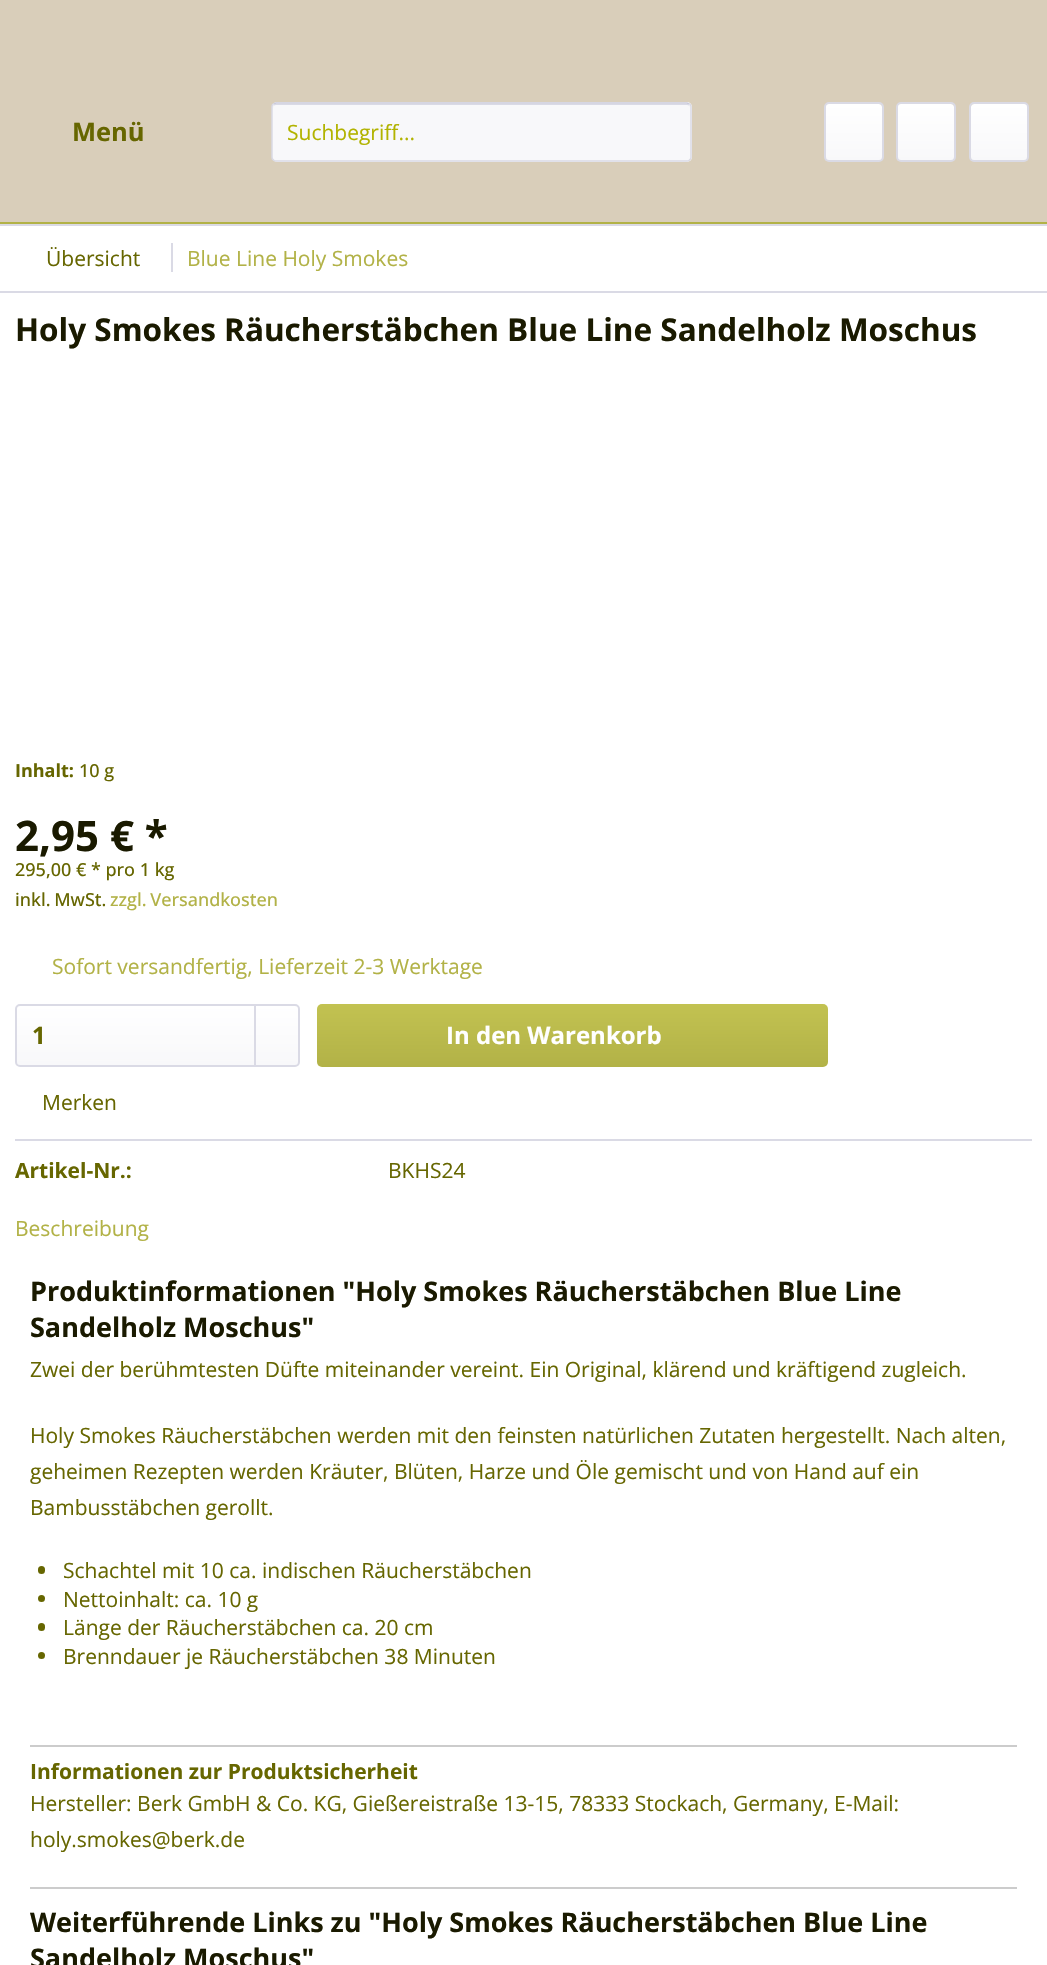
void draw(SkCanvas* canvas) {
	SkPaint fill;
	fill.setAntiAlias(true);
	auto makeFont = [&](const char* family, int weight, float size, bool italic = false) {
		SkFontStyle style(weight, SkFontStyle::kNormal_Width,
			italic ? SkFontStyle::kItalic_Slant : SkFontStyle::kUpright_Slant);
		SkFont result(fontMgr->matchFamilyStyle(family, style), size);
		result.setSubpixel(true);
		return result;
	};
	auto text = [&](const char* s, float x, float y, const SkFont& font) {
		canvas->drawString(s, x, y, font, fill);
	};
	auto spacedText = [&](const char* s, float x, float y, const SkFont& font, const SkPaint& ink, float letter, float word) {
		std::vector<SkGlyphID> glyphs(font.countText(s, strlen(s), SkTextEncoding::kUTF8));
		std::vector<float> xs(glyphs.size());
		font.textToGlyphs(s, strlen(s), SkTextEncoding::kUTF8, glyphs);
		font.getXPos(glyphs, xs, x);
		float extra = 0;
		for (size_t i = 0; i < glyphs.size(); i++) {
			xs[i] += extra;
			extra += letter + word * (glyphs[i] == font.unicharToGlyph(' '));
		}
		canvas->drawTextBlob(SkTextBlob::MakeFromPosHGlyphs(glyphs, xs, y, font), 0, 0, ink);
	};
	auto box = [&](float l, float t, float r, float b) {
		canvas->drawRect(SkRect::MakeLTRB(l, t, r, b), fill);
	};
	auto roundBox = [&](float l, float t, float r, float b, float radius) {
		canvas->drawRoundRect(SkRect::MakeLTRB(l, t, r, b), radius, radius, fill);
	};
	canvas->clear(0xFFD9CEBA);
	fill.setColor(0xFFB2B247);
	box(0, 222, 1047, 224);
	fill.setColor(0xFFF8F8FA);
	roundBox(272, 102, 692, 162, 5);
	fill.setColor(0xFFDADAE5);
	canvas->drawPath(SkPathBuilder().moveTo(276, 105).lineTo(687, 105).cubicTo(689, 105, 690, 106, 690, 108).cubicTo(690, 106, 689, 104, 687, 104).lineTo(276, 104).cubicTo(274, 104, 273, 106, 273, 108).cubicTo(273, 106, 274, 105, 276, 105).close().detach(), fill);
	fill.setStyle(SkPaint::kStroke_Style);
	fill.setStrokeWidth(1.5f);
	fill.setColor(0xFFCBCBDB);
	canvas->drawPath(SkPathBuilder().moveTo(273.5f, 104).lineTo(276, 103).lineTo(687, 103).lineTo(689.5f, 104).detach(), fill);
	fill.setColor(0xFFDADAE5);
	canvas->drawPath(SkPathBuilder().moveTo(689.5f, 104).cubicTo(690.5f, 104.5f, 691, 105.5f, 691, 106.5f).lineTo(691, 157.5f).cubicTo(691, 158.5f, 690.5f, 159.5f, 689.5f, 160).cubicTo(689, 161, 688, 161, 687, 161).lineTo(276, 161).cubicTo(275, 161, 274, 161, 273.5f, 160).cubicTo(272.5f, 159.5f, 272, 158.5f, 272, 157.5f).lineTo(272, 106.5f).cubicTo(272, 105.5f, 272.5f, 104.5f, 273.5f, 104).detach(), fill);
	fill.setStyle(SkPaint::kFill_Style);
	{
		const SkColor colors[] = {0xFFFFFFFF, 0xFFF8F8FA};
		const float stops[] = {0, 1};
		const SkPoint ends[] = {{854, 104}, {854, 161}};
		fill.setShader(SkGradientShader::MakeLinear(ends, colors, stops, 2, SkTileMode::kClamp));
		fill.setAlpha(255);
	}
	roundBox(825, 104, 882, 161, 3);
	fill.setStyle(SkPaint::kStroke_Style);
	fill.setStrokeWidth(2);
	fill.setShader(nullptr);
	fill.setColor(0xFFDADAE5);
	canvas->drawRoundRect(SkRect::MakeLTRB(825, 103, 883, 161), 4, 4, fill);
	fill.setStyle(SkPaint::kFill_Style);
	{
		const SkColor colors[] = {0xFFFFFFFF, 0xFFF8F8FA};
		const float stops[] = {0, 1};
		const SkPoint ends[] = {{926, 104}, {926, 161}};
		fill.setShader(SkGradientShader::MakeLinear(ends, colors, stops, 2, SkTileMode::kClamp));
		fill.setAlpha(255);
	}
	roundBox(897, 104, 954, 161, 3);
	fill.setStyle(SkPaint::kStroke_Style);
	fill.setShader(nullptr);
	fill.setColor(0xFFDADAE5);
	canvas->drawRoundRect(SkRect::MakeLTRB(897, 103, 955, 161), 4, 4, fill);
	fill.setStyle(SkPaint::kFill_Style);
	{
		const SkColor colors[] = {0xFFFFFFFF, 0xFFF8F8FA};
		const float stops[] = {0, 1};
		const SkPoint ends[] = {{999, 104}, {999, 161}};
		fill.setShader(SkGradientShader::MakeLinear(ends, colors, stops, 2, SkTileMode::kClamp));
		fill.setAlpha(255);
	}
	roundBox(971, 104, 1028, 161, 3);
	fill.setStyle(SkPaint::kStroke_Style);
	fill.setShader(nullptr);
	fill.setColor(0xFFDADAE5);
	canvas->drawRoundRect(SkRect::MakeLTRB(970, 103, 1028, 161), 4, 4, fill);
	fill.setStyle(SkPaint::kFill_Style);
	fill.setColor(0xFFFFFFFF);
	box(0, 226, 1047, 1965);
	fill.setColor(0xFFDADAE5);
	box(0, 224, 1047, 226);
	box(0, 291, 1047, 293);
	box(171, 243, 173, 272);
	{
		const SkColor colors[] = {0xFFFFFFFF, 0xFFF8F8FA};
		const float stops[] = {0, 1};
		const SkPoint ends[] = {{158, 1005}, {158, 1065}};
		fill.setShader(SkGradientShader::MakeLinear(ends, colors, stops, 2, SkTileMode::kClamp));
		fill.setAlpha(255);
	}
	roundBox(17, 1005, 299, 1065, 3);
	fill.setStyle(SkPaint::kStroke_Style);
	fill.setShader(nullptr);
	fill.setColor(0xFFDADAE5);
	canvas->drawRoundRect(SkRect::MakeLTRB(16, 1005, 299, 1066), 4, 4, fill);
	fill.setStyle(SkPaint::kFill_Style);
	box(254, 1005, 256, 1065);
	{
		const SkColor colors[] = {0xFFC2C251, 0xFFB2B247};
		const float stops[] = {0, 1};
		const SkPoint ends[] = {{572, 1004}, {572, 1067}};
		fill.setShader(SkGradientShader::MakeLinear(ends, colors, stops, 2, SkTileMode::kClamp));
		fill.setAlpha(255);
	}
	roundBox(317, 1004, 828, 1067, 5);
	fill.setShader(nullptr);
	fill.setColor(0xFFDADAE5);
	box(15, 1139, 1032, 1141);
	fill.setColor(0xFF666600);
	roundBox(38, 1566, 45, 1574, 3.5f);
	canvas->drawCircle(41.5f, 1598.5f, 3.5f, fill);
	roundBox(38, 1623, 45, 1631, 3.5f);
	canvas->drawCircle(41.5f, 1655.5f, 3.5f, fill);
	fill.setColor(0xFFCCCCCC);
	box(30, 1745, 1017, 1747);
	box(30, 1887, 1017, 1889);
	auto font1 = makeFont("Open Sans", 700, 25.5f);
	fill.setColor(0xFF666600);
	text("Menü", 72, 141, font1);
	auto font2 = makeFont("Open Sans", 400, 21);
	fill.setColor(0xFFB2B300);
	text("Suchbegriff...", 287, 140, font2);
	fill.setColor(0xFF666600);
	text("Übersicht", 46, 266, font2);
	fill.setColor(0xFFB2B247);
	text("Blue Line Holy Smokes", 187, 266, font2);
	auto font3 = makeFont("Open Sans", 700, 31.5f);
	fill.setColor(0xFF1A1A00);
	text("Holy Smokes Räucherstäbchen Blue Line Sandelholz Moschus", 15, 341, font3);
	auto font4 = makeFont("Open Sans", 700, 18);
	fill.setColor(0xFF666600);
	text("Inhalt:", 15, 777, font4);
	auto font5 = makeFont("Open Sans", 500, 18);
	text("10 g", 79, 777, font5);
	auto font6 = makeFont("Open Sans", 700, 42);
	fill.setColor(0xFF1A1A00);
	text("2,95 € *", 15, 851, font6);
	fill.setColor(0xFF666600);
	text("295,00 € * pro 1 kg", 15, 876, font5);
	spacedText("inkl. MwSt.", 15, 906, font5, fill, 0, -1);
	fill.setColor(0xFFB2B247);
	spacedText("zzgl. Versandkosten", 110, 906, font5, fill, 0, -1);
	text("Sofort versandfertig, Lieferzeit 2-3 Werktage", 52, 974, font2);
	auto font7 = makeFont("Open Sans", 700, 24);
	fill.setColor(0xFF666600);
	text("1", 32, 1044, font7);
	fill.setColor(0xFFFFFFFF);
	text("In den Warenkorb", 446, 1044, font7);
	fill.setColor(0xFF666600);
	text("Merken", 42, 1110, font2);
	auto font8 = makeFont("Open Sans", 700, 21);
	text("Artikel-Nr.:", 15, 1178, font8);
	text("BKHS24", 388, 1178, font2);
	fill.setColor(0xFFB2B247);
	text("Beschreibung", 15, 1236, font2);
	auto font9 = makeFont("Open Sans", 700, 27);
	fill.setColor(0xFF1A1A00);
	text("Produktinformationen \"Holy Smokes Räucherstäbchen Blue Line", 30, 1301, font9);
	text("Sandelholz Moschus\"", 30, 1337, font9);
	fill.setColor(0xFF666600);
	text("Zwei der berühmtesten Düfte miteinander vereint. Ein Original, klärend und kräftigend zugleich.", 30, 1377, font2);
	text("Holy Smokes Räucherstäbchen werden mit den feinsten natürlichen Zutaten hergestellt. Nach alten,", 30, 1443, font2);
	text("geheimen Rezepten werden Kräuter, Blüten, Harze und Öle gemischt und von Hand auf ein", 30, 1479, font2);
	text("Bambusstäbchen gerollt.", 30, 1515, font2);
	text("Schachtel mit 10 ca. indischen Räucherstäbchen", 63, 1578, font2);
	text("Nettoinhalt: ca. 10 g", 63, 1607, font2);
	text("Länge der Räucherstäbchen ca. 20 cm", 63, 1635, font2);
	text("Brenndauer je Räucherstäbchen 38 Minuten", 63, 1664, font2);
	text("Informationen zur Produktsicherheit", 30, 1779, font8);
	text("Hersteller: Berk GmbH & Co. KG, Gießereistraße 13-15, 78333 Stockach, Germany, E-Mail:", 30, 1811, font2);
	text("holy.smokes@berk.de", 30, 1847, font2);
	fill.setColor(0xFF1A1A00);
	text("Weiterführende Links zu \"Holy Smokes Räucherstäbchen Blue Line", 30, 1932, font9);
	text("Sandelholz Moschus\"", 30, 1968, font9);
}
